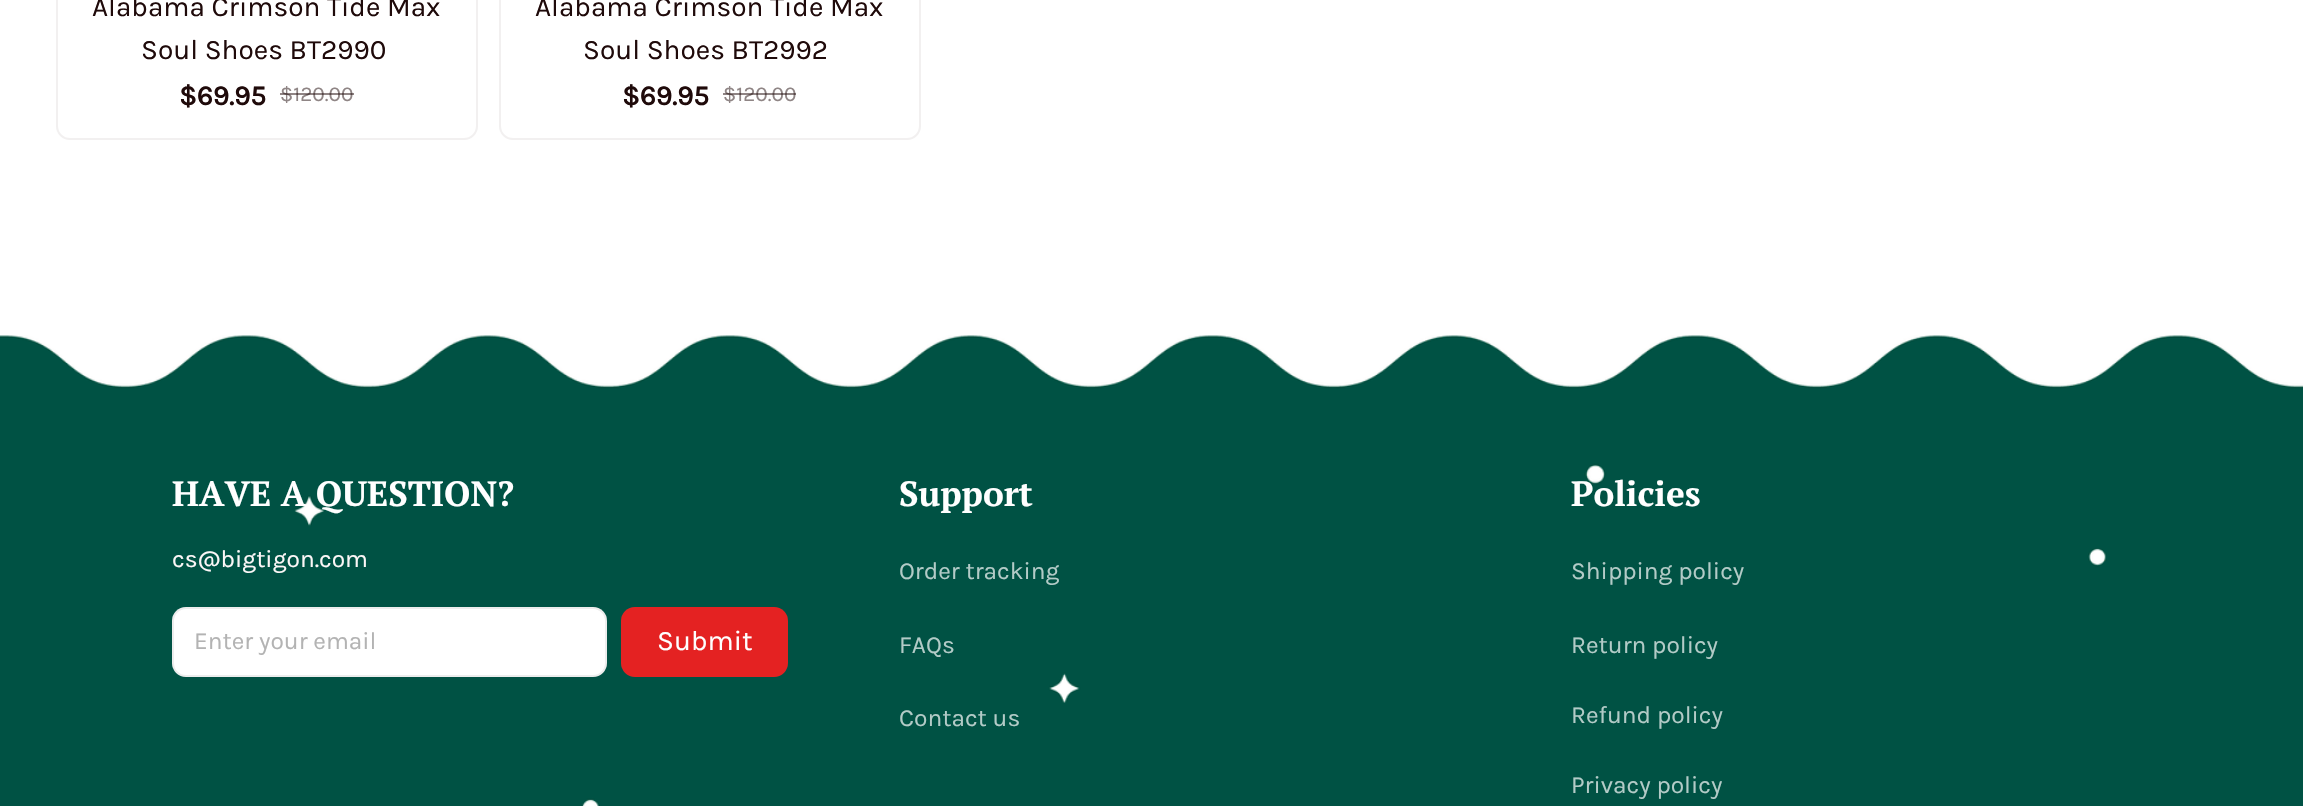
void draw(SkCanvas* canvas) {
	SkPaint fill;
	fill.setAntiAlias(true);
	auto makeFont = [&](const char* family, int weight, float size, bool italic = false) {
		SkFontStyle style(weight, SkFontStyle::kNormal_Width,
			italic ? SkFontStyle::kItalic_Slant : SkFontStyle::kUpright_Slant);
		SkFont result(fontMgr->matchFamilyStyle(family, style), size);
		result.setSubpixel(true);
		return result;
	};
	auto text = [&](const char* s, float x, float y, const SkFont& font) {
		canvas->drawString(s, x, y, font, fill);
	};
	auto box = [&](float l, float t, float r, float b) {
		canvas->drawRect(SkRect::MakeLTRB(l, t, r, b), fill);
	};
	auto roundBox = [&](float l, float t, float r, float b, float radius) {
		canvas->drawRoundRect(SkRect::MakeLTRB(l, t, r, b), radius, radius, fill);
	};
	auto picture = [&](const char* path, float l, float t, float r, float b) {
		auto image = SkImages::DeferredFromEncodedData(SkData::MakeFromFileName(path));
		canvas->drawImageRect(image, SkRect::MakeLTRB(l, t, r, b), SkSamplingOptions());
	};
	canvas->clear(0xFFFFFFFF);
	fill.setStyle(SkPaint::kStroke_Style);
	fill.setStrokeWidth(2);
	fill.setColor(0xFFF2F0F0);
	canvas->drawRoundRect(SkRect::MakeLTRB(57, -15, 477, 139), 13, 13, fill);
	canvas->drawRoundRect(SkRect::MakeLTRB(500, -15, 920, 139), 13, 13, fill);
	picture("image0.png", 0, 335, 2303, 806);
	fill.setStyle(SkPaint::kFill_Style);
	fill.setColor(0xFFFFFFFF);
	roundBox(172, 607, 607, 677, 14);
	fill.setStyle(SkPaint::kStroke_Style);
	fill.setColor(0x1A4D4D4D);
	canvas->drawRoundRect(SkRect::MakeLTRB(173, 608, 606, 676), 13, 13, fill);
	fill.setStyle(SkPaint::kFill_Style);
	fill.setColor(0xFFE42222);
	roundBox(621, 607, 788, 677, 14);
	auto font1 = makeFont("Karla", 400, 28);
	fill.setColor(0xFF1F0A0A);
	text("Alabama Crimson Tide Max", 92, 16, font1);
	text("Soul Shoes BT2990", 141, 59, font1);
	auto font2 = makeFont("Karla", 700, 28);
	text("$69.95", 179, 105, font2);
	auto font3 = makeFont("Karla", 400, 21);
	fill.setColor(0xFF8F8585);
	text("$120.00", 280, 101, font3);
	fill.setColor(0x801F0A0A);
	box(280, 93, 354, 95);
	fill.setColor(0xFF1F0A0A);
	text("Alabama Crimson Tide Max", 535, 16, font1);
	text("Soul Shoes BT2992", 583, 59, font1);
	text("$69.95", 622, 105, font2);
	fill.setColor(0xFF8F8585);
	text("$120.00", 723, 101, font3);
	fill.setColor(0x801F0A0A);
	box(723, 93, 796, 95);
	auto font4 = makeFont("PT Serif", 700, 35);
	fill.setColor(0xFFFFFFFF);
	text("HAVE A QUESTION?", 172, 506, font4);
	auto font5 = makeFont("Karla", 400, 24.5f);
	fill.setColor(0xFFFCF7F7);
	text("cs@bigtigon.com", 172, 567, font5);
	fill.setColor(0xFFB3B3B3);
	text("Enter your email", 194, 649, font5);
	fill.setColor(0xFFFFFFFF);
	text("Submit", 657, 650, font1);
	text("Support", 899, 506, font4);
	fill.setColor(0xFFB3CBC7);
	text("Order tracking", 899, 579, font5);
	text("FAQs", 899, 653, font5);
	text("Contact us", 899, 726, font5);
	fill.setColor(0xFFFFFFFF);
	text("Policies", 1571, 506, font4);
	fill.setColor(0xFFB3CBC7);
	text("Shipping policy", 1571, 579, font5);
	text("Return policy", 1571, 653, font5);
	text("Refund policy", 1571, 723, font5);
	text("Privacy policy", 1571, 793, font5);
}
